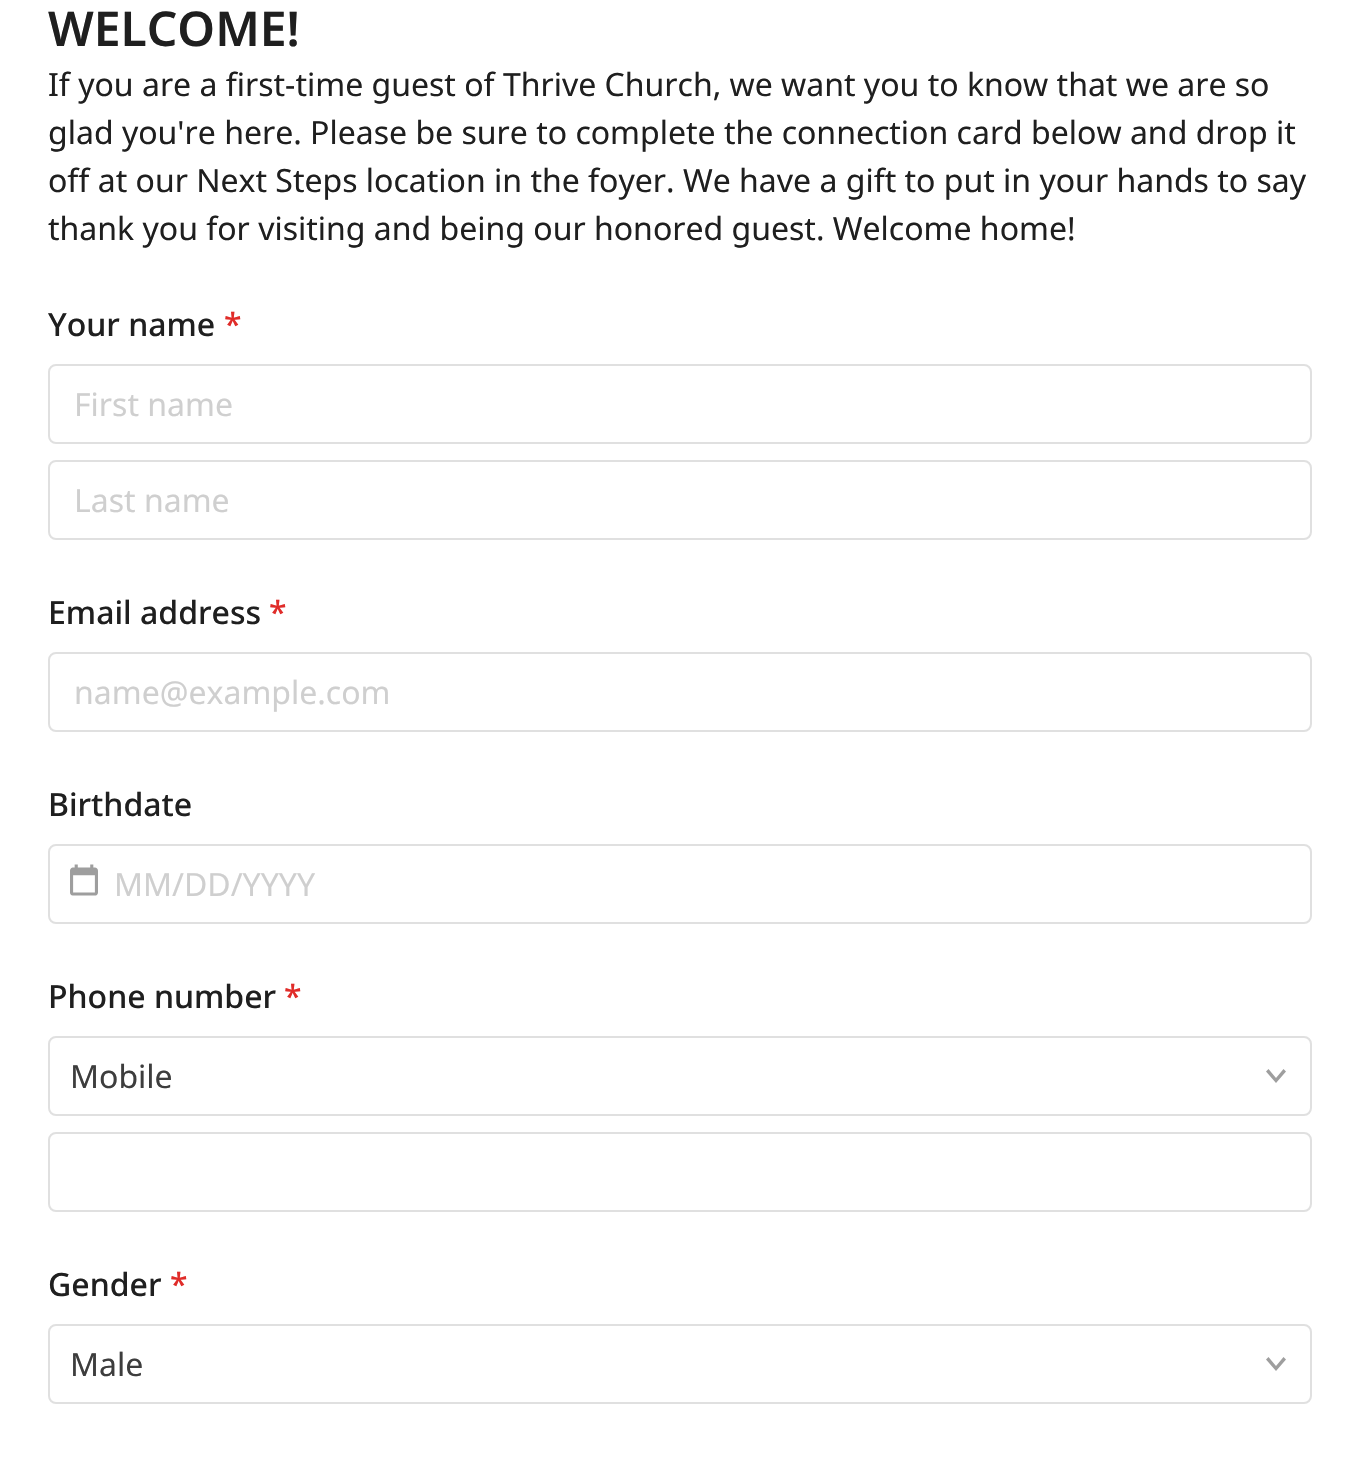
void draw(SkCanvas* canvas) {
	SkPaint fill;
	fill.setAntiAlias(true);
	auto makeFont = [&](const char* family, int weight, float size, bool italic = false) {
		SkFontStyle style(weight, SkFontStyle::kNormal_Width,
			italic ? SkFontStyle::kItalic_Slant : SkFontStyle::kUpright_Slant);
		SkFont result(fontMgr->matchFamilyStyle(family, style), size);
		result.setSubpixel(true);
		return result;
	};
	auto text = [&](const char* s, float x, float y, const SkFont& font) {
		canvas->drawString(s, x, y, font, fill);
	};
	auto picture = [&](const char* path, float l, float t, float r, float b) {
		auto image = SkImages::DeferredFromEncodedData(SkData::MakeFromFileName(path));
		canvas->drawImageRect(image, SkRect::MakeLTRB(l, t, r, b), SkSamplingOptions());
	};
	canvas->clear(0xFFFFFFFF);
	fill.setStyle(SkPaint::kStroke_Style);
	fill.setStrokeWidth(2);
	fill.setColor(0xFFE0E0E0);
	canvas->drawRoundRect(SkRect::MakeLTRB(49, 365, 1311, 443), 7, 7, fill);
	canvas->drawRoundRect(SkRect::MakeLTRB(49, 461, 1311, 539), 7, 7, fill);
	canvas->drawRoundRect(SkRect::MakeLTRB(49, 653, 1311, 731), 7, 7, fill);
	canvas->drawRoundRect(SkRect::MakeLTRB(49, 845, 1311, 923), 7, 7, fill);
	picture("image0.png", 70, 864, 98, 896);
	fill.setStyle(SkPaint::kFill_Style);
	fill.setColor(0xFF9E9E9E);
	canvas->drawPath(SkPathBuilder().moveTo(1286, 1071.5f).lineTo(1283.5f, 1069).lineTo(1276, 1078).lineTo(1268.5f, 1069).lineTo(1266, 1071.5f).lineTo(1276, 1083).close().detach(), fill);
	fill.setStyle(SkPaint::kStroke_Style);
	fill.setColor(0xFFE0E0E0);
	canvas->drawRoundRect(SkRect::MakeLTRB(49, 1037, 1311, 1115), 7, 7, fill);
	canvas->drawRoundRect(SkRect::MakeLTRB(49, 1133, 1311, 1211), 7, 7, fill);
	fill.setStyle(SkPaint::kFill_Style);
	fill.setColor(0xFF9E9E9E);
	canvas->drawPath(SkPathBuilder().moveTo(1286, 1359.5f).lineTo(1283.5f, 1357).lineTo(1276, 1366).lineTo(1268.5f, 1357).lineTo(1266, 1359.5f).lineTo(1276, 1371).close().detach(), fill);
	fill.setStyle(SkPaint::kStroke_Style);
	fill.setColor(0xFFE0E0E0);
	canvas->drawRoundRect(SkRect::MakeLTRB(49, 1325, 1311, 1403), 7, 7, fill);
	auto font1 = makeFont("Noto Sans", 600, 48);
	fill.setStyle(SkPaint::kFill_Style);
	fill.setColor(0xFF1F1F1F);
	text("WELCOME!", 48, 46, font1);
	auto font2 = makeFont("Noto Sans", 400, 32);
	text("If you are a first-time guest of Thrive Church, we want you to know that we are so", 48, 96, font2);
	text("glad you're here. Please be sure to complete the connection card below and drop it", 48, 144, font2);
	text("off at our Next Steps location in the foyer. We have a gift to put in your hands to say", 48, 192, font2);
	text("thank you for visiting and being our honored guest. Welcome home!", 48, 240, font2);
	auto font3 = makeFont("Noto Sans", 500, 32);
	text("Your name", 48, 336, font3);
	fill.setColor(0xFFE02C29);
	text("*", 224, 336, font3);
	fill.setColor(0xFFCFCFCF);
	text("First name", 74, 416, font2);
	text("Last name", 74, 512, font2);
	fill.setColor(0xFF1F1F1F);
	text("Email address", 48, 624, font3);
	fill.setColor(0xFFE02C29);
	text("*", 269, 624, font3);
	fill.setColor(0xFFCFCFCF);
	text("name@example.com", 74, 704, font2);
	fill.setColor(0xFF1F1F1F);
	text("Birthdate", 48, 816, font3);
	fill.setColor(0xFFCFCFCF);
	text("MM/DD/YYYY", 114, 896, font2);
	fill.setColor(0xFF1F1F1F);
	text("Phone number", 48, 1008, font3);
	fill.setColor(0xFFE02C29);
	text("*", 284, 1008, font3);
	fill.setColor(0xFF3D3D3D);
	text("Mobile", 70, 1088, font2);
	fill.setColor(0xFF1F1F1F);
	text("Gender", 48, 1296, font3);
	fill.setColor(0xFFE02C29);
	text("*", 170, 1296, font3);
	fill.setColor(0xFF3D3D3D);
	text("Male", 70, 1376, font2);
}
